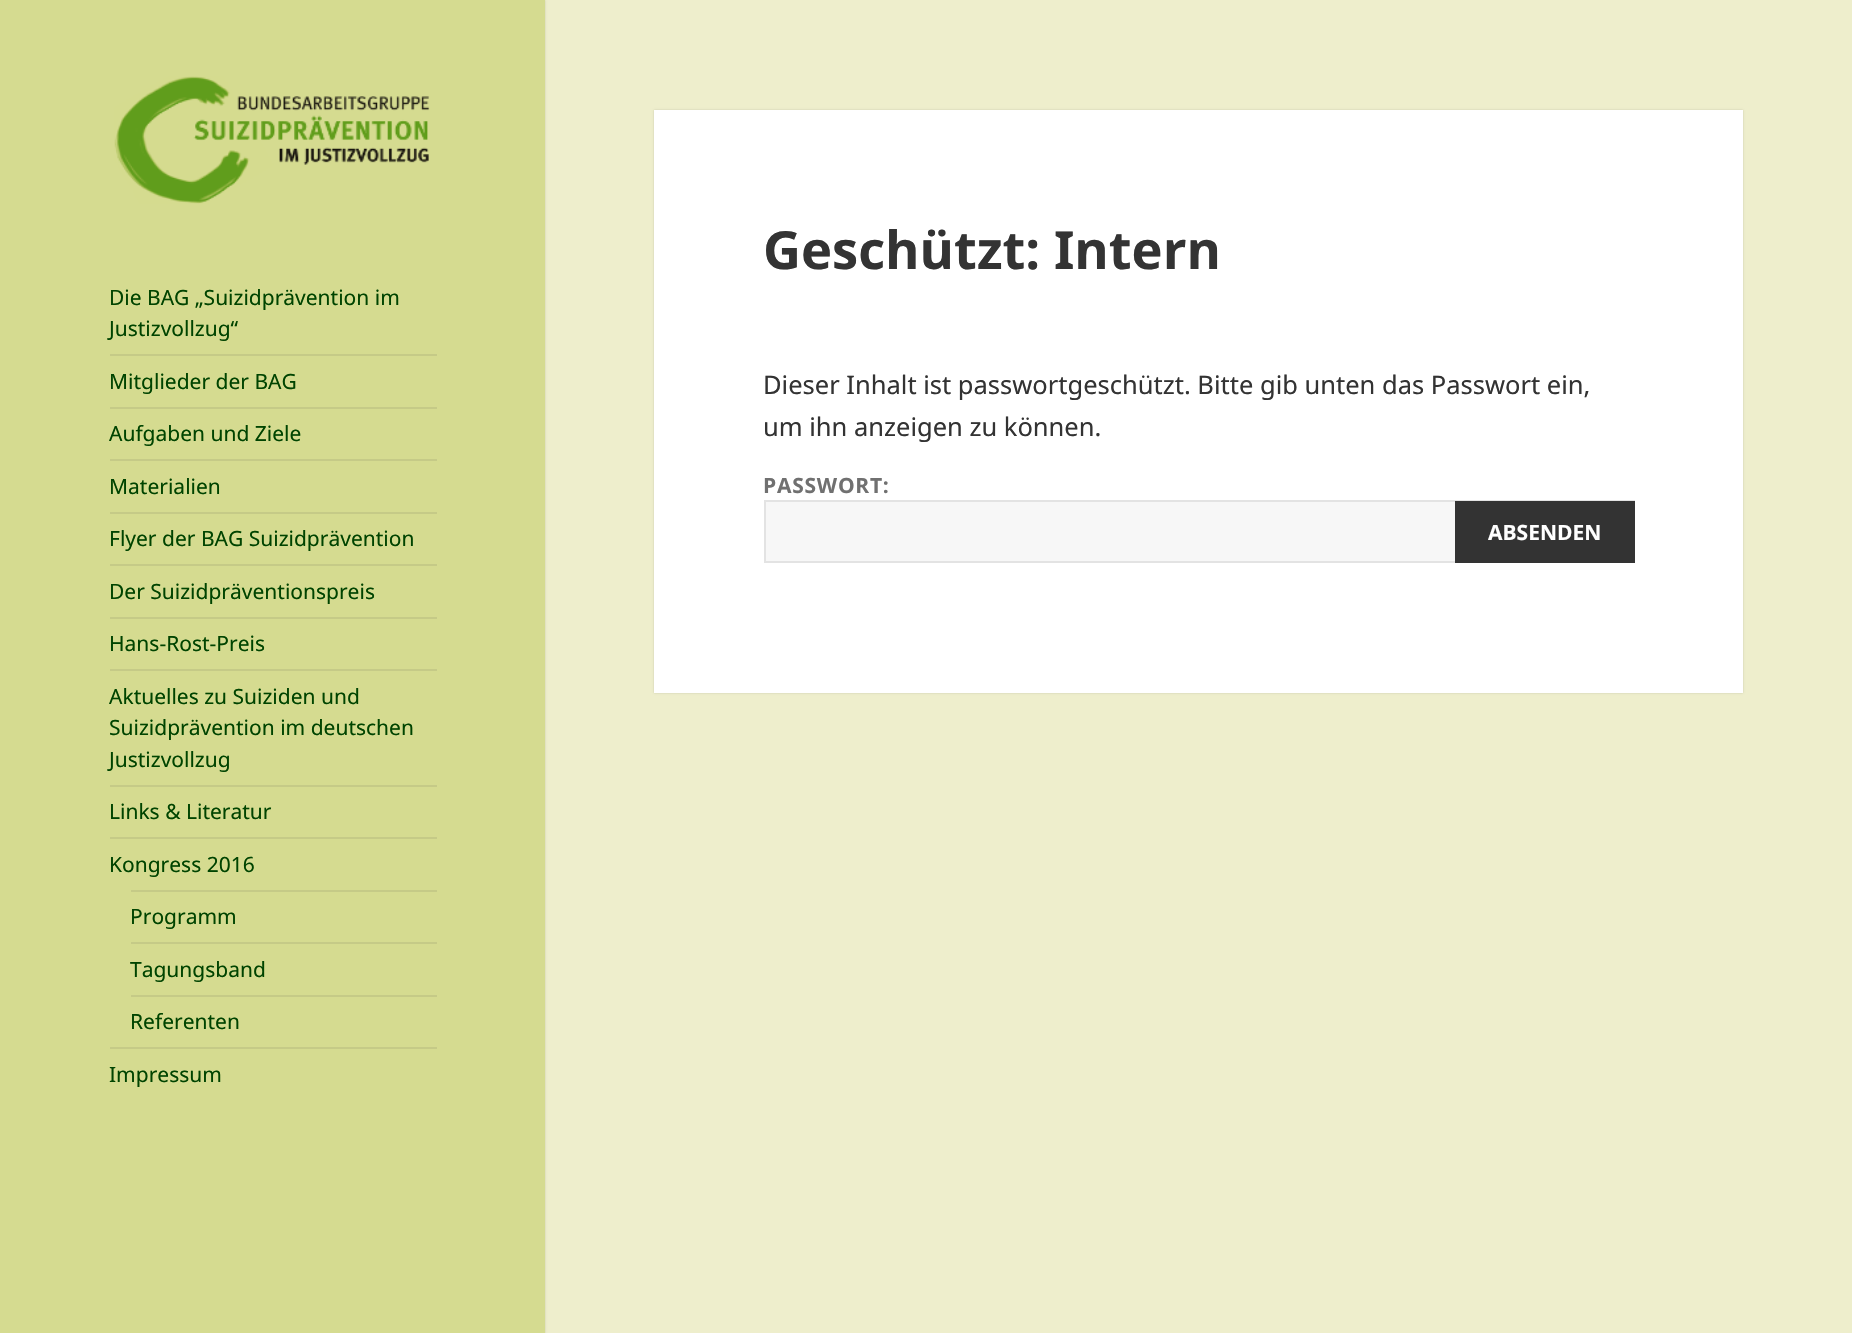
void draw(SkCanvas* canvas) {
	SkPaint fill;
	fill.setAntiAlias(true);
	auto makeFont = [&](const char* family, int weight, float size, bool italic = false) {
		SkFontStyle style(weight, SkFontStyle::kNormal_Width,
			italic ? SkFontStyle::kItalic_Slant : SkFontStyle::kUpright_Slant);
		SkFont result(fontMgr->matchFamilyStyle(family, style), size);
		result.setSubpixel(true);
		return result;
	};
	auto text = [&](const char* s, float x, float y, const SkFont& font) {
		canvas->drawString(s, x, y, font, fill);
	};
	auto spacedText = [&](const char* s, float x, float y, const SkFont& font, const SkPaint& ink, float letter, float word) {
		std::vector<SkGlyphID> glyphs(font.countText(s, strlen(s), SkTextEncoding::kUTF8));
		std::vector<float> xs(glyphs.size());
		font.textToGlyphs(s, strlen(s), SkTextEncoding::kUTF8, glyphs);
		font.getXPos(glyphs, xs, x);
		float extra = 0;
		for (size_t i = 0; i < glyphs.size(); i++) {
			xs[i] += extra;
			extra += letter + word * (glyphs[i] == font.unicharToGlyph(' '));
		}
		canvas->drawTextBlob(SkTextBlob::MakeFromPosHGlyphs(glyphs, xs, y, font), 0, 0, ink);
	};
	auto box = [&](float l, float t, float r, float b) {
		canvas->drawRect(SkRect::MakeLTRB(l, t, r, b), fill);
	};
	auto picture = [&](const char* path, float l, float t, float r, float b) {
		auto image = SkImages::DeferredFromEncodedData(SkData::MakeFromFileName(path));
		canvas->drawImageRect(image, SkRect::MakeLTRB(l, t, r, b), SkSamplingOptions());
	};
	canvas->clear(0xFFEEEECC);
	fill.setColor(0x26000000);
	fill.setMaskFilter(SkMaskFilter::MakeBlur(kNormal_SkBlurStyle, 1));
	canvas->drawRect(SkRect::MakeLTRB(0, 0, 545, 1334), fill);
	fill.setMaskFilter(nullptr);
	fill.setColor(0xFFD5DB90);
	box(0, 0, 545, 1333);
	picture("image0.png", 114, 76, 430, 204);
	fill.setColor(0xFFC5CA87);
	box(110, 354, 437, 356);
	box(110, 407, 437, 409);
	box(110, 459, 437, 461);
	box(110, 512, 437, 514);
	box(110, 564, 437, 566);
	box(110, 617, 437, 619);
	box(110, 669, 437, 671);
	box(110, 785, 437, 787);
	box(110, 837, 437, 839);
	box(131, 890, 437, 892);
	box(131, 942, 437, 944);
	box(131, 995, 437, 997);
	box(110, 1047, 437, 1049);
	fill.setColor(0x26000000);
	fill.setMaskFilter(SkMaskFilter::MakeBlur(kNormal_SkBlurStyle, 1));
	canvas->drawRect(SkRect::MakeLTRB(654, 110, 1743, 693), fill);
	fill.setMaskFilter(nullptr);
	fill.setColor(0xFFFFFFFF);
	box(654, 110, 1743, 693);
	fill.setColor(0xFFF7F7F7);
	box(766, 502, 1455, 561);
	fill.setStyle(SkPaint::kStroke_Style);
	fill.setStrokeWidth(2);
	fill.setColor(0xFFE3E3E3);
	canvas->drawRect(SkRect::MakeLTRB(765, 501, 1634, 562), fill);
	fill.setStyle(SkPaint::kFill_Style);
	fill.setColor(0xFF333333);
	box(1455, 501, 1635, 563);
	auto font1 = makeFont("Noto Sans", 400, 21);
	fill.setColor(0xFF004400);
	text("Die BAG „Suizidprävention im", 109, 305, font1);
	text("Justizvollzug“", 109, 336, font1);
	text("Mitglieder der BAG", 109, 389, font1);
	text("Aufgaben und Ziele", 109, 441, font1);
	text("Materialien", 109, 494, font1);
	text("Flyer der BAG Suizidprävention", 109, 546, font1);
	text("Der Suizidpräventionspreis", 109, 599, font1);
	text("Hans-Rost-Preis", 109, 651, font1);
	text("Aktuelles zu Suiziden und", 109, 704, font1);
	text("Suizidprävention im deutschen", 109, 735, font1);
	text("Justizvollzug", 109, 767, font1);
	text("Links & Literatur", 109, 819, font1);
	text("Kongress 2016", 109, 872, font1);
	text("Programm", 130, 924, font1);
	text("Tagungsband", 130, 977, font1);
	text("Referenten", 130, 1029, font1);
	text("Impressum", 109, 1082, font1);
	auto font2 = makeFont("Noto Sans", 700, 52.5f);
	fill.setColor(0xFF333333);
	text("Geschützt: Intern", 763, 269, font2);
	auto font3 = makeFont("Noto Sans", 400, 25.5f);
	text("Dieser Inhalt ist passwortgeschützt. Bitte gib unten das Passwort ein,", 763, 394, font3);
	text("um ihn anzeigen zu können.", 763, 436, font3);
	auto font4 = makeFont("Noto Sans", 700, 21);
	fill.setColor(0xFF707070);
	spacedText("PASSWORT:", 763, 493, font4, fill, 0.75f, 0);
	fill.setColor(0xFFFFFFFF);
	text("ABSENDEN", 1488, 540, font4);
}
